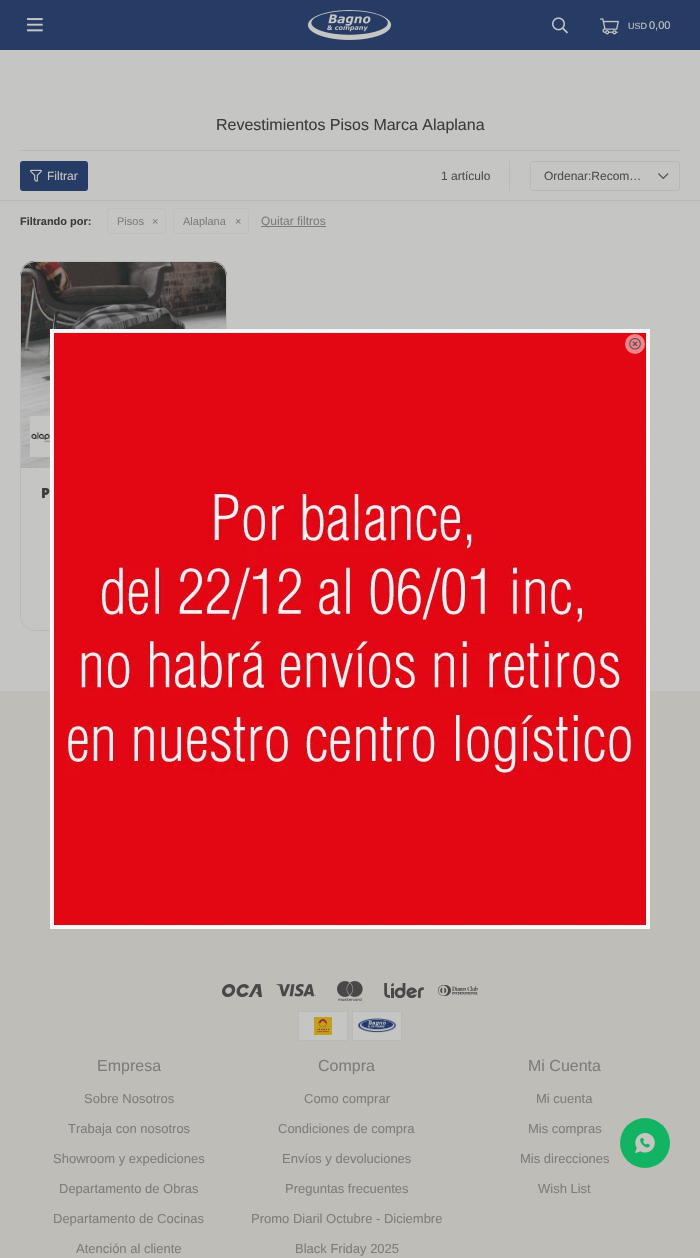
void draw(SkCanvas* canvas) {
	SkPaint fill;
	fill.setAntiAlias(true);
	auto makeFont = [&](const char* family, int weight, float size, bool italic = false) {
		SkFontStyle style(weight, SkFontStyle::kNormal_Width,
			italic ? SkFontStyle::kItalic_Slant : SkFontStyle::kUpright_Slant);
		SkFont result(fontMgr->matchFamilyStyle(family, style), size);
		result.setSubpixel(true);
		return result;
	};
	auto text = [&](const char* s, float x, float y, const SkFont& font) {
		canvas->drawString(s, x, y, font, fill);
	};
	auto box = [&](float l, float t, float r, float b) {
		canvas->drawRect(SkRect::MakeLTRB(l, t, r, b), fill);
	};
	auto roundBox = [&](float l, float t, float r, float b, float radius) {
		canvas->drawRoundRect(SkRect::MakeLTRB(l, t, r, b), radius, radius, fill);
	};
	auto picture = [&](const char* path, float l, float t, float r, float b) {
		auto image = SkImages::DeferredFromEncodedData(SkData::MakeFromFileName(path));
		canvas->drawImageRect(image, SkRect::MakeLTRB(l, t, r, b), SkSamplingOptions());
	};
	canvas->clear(0xFFC5C5C4);
	fill.setColor(0xFF263C65);
	box(0, 0, 700, 50);
	picture("image0.png", 27, 18, 43, 32);
	picture("image1.png", 308, 10, 392, 40);
	picture("image2.png", 552, 17, 568, 34);
	picture("image3.png", 600, 18, 619, 35);
	fill.setColor(0xFFB8B8B8);
	box(20, 150, 680, 151);
	fill.setColor(0xFF263C65);
	roundBox(20, 161, 88, 191, 3);
	picture("image4.png", 30, 169, 42, 182);
	fill.setColor(0xFFB8B8B8);
	box(509, 161, 510, 191);
	picture("image5.png", 658, 173, 669, 180);
	fill.setStyle(SkPaint::kStroke_Style);
	fill.setStrokeWidth(1);
	canvas->drawRoundRect(SkRect::MakeLTRB(530.5f, 161.5f, 679.5f, 190.5f), 2.5f, 2.5f, fill);
	fill.setStyle(SkPaint::kFill_Style);
	box(0, 200, 700, 201);
	fill.setStyle(SkPaint::kStroke_Style);
	fill.setColor(0xFFBEBEBE);
	canvas->drawRoundRect(SkRect::MakeLTRB(107.5f, 208.5f, 165.5f, 233.5f), 2.5f, 2.5f, fill);
	canvas->drawRoundRect(SkRect::MakeLTRB(173.5f, 208.5f, 248.5f, 233.5f), 2.5f, 2.5f, fill);
	fill.setStyle(SkPaint::kFill_Style);
	fill.setColor(0xFF7D7D7D);
	box(261, 226, 326, 227);
	picture("image6.png", 20, 261, 227, 468);
	picture("image7.png", 30, 416, 50, 457);
	fill.setStyle(SkPaint::kStroke_Style);
	fill.setColor(0xFFB8B8B8);
	canvas->drawRoundRect(SkRect::MakeLTRB(20.5f, 261.5f, 226.5f, 630.5f), 14.5f, 14.5f, fill);
	fill.setStyle(SkPaint::kFill_Style);
	fill.setColor(0xFFBEBDB8);
	box(0, 691, 700, 1258);
	picture("image8.png", 222, 984, 262, 997);
	picture("image9.png", 276, 984, 316, 997);
	picture("image10.png", 337, 981, 363, 1001);
	picture("image11.png", 384, 983, 424, 998);
	picture("image12.png", 438, 985, 478, 996);
	fill.setColor(0xFFC5C5C4);
	canvas->drawRect(SkRect::MakeLTRB(298.5f, 1011.5f, 347.5f, 1040.5f), fill);
	fill.setStyle(SkPaint::kStroke_Style);
	fill.setColor(0xFFB8B8B8);
	canvas->drawRect(SkRect::MakeLTRB(298.5f, 1011.5f, 347.5f, 1040.5f), fill);
	picture("image13.png", 314, 1017, 332, 1035);
	fill.setStyle(SkPaint::kFill_Style);
	fill.setColor(0xFFC5C5C4);
	canvas->drawRect(SkRect::MakeLTRB(352.5f, 1011.5f, 401.5f, 1040.5f), fill);
	fill.setStyle(SkPaint::kStroke_Style);
	fill.setColor(0xFFB8B8B8);
	canvas->drawRect(SkRect::MakeLTRB(352.5f, 1011.5f, 401.5f, 1040.5f), fill);
	picture("image14.png", 358, 1018, 396, 1033);
	picture("image15.png", 50, 329, 650, 929);
	fill.setStyle(SkPaint::kFill_Style);
	fill.setColor(0x80FFFFFF);
	canvas->drawCircle(635, 344, 10, fill);
	picture("image16.png", 629, 338, 641, 350);
	fill.setColor(0xFF13B364);
	canvas->drawCircle(645, 1143, 25, fill);
	picture("image17.png", 635, 1133, 655, 1153);
	auto font1 = makeFont("Liberation Sans", 400, 9);
	fill.setColor(0xFFC5C5C4);
	text("USD", 628, 29, font1);
	auto font2 = makeFont("Liberation Sans", 400, 11);
	text("0,00", 649, 29, font2);
	auto font3 = makeFont("Liberation Sans", 400, 16);
	fill.setColor(0xFF3C3C3B);
	text("Revestimientos Pisos Marca Alaplana", 216, 130, font3);
	auto font4 = makeFont("Liberation Sans", 400, 12);
	fill.setColor(0xFFC5C5C4);
	text("Filtrar", 47, 180, font4);
	fill.setColor(0xFF4E4E4D);
	text("1 artículo", 441, 180, font4);
	text("Ordenar:Recom…", 544, 180, font4);
	auto font5 = makeFont("Liberation Sans", 700, 11);
	fill.setColor(0xFF3C3C3B);
	text("Filtrando por:", 20, 225, font5);
	fill.setColor(0xFF7D7D7D);
	text("Pisos", 117, 225, font2);
	text("×", 152, 225, font2);
	text("Alaplana", 183, 225, font2);
	text("×", 235, 225, font2);
	text("Quitar filtros", 261, 225, font4);
	auto font6 = makeFont("Noto Sans", 900, 14);
	fill.setColor(0xFF3C3C3B);
	text("P", 41, 498, font6);
	fill.setColor(0xFF7D7D7D);
	text("Empresa", 97, 1071, font3);
	auto font7 = makeFont("Liberation Sans", 400, 13);
	text("Sobre Nosotros", 84, 1103, font7);
	text("Trabaja con nosotros", 68, 1133, font7);
	text("Showroom y expediciones", 53, 1163, font7);
	text("Departamento de Obras", 59, 1193, font7);
	text("Departamento de Cocinas", 53, 1223, font7);
	text("Atención al cliente", 76, 1253, font7);
	text("Compra", 318, 1071, font3);
	text("Como comprar", 304, 1103, font7);
	text("Condiciones de compra", 278, 1133, font7);
	text("Envíos y devoluciones", 282, 1163, font7);
	text("Preguntas frecuentes", 285, 1193, font7);
	text("Promo Diaril Octubre - Diciembre", 251, 1223, font7);
	text("Black Friday 2025", 295, 1253, font7);
	text("Mi Cuenta", 528, 1071, font3);
	text("Mi cuenta", 536, 1103, font7);
	text("Mis compras", 528, 1133, font7);
	text("Mis direcciones", 520, 1163, font7);
	text("Wish List", 538, 1193, font7);
}
